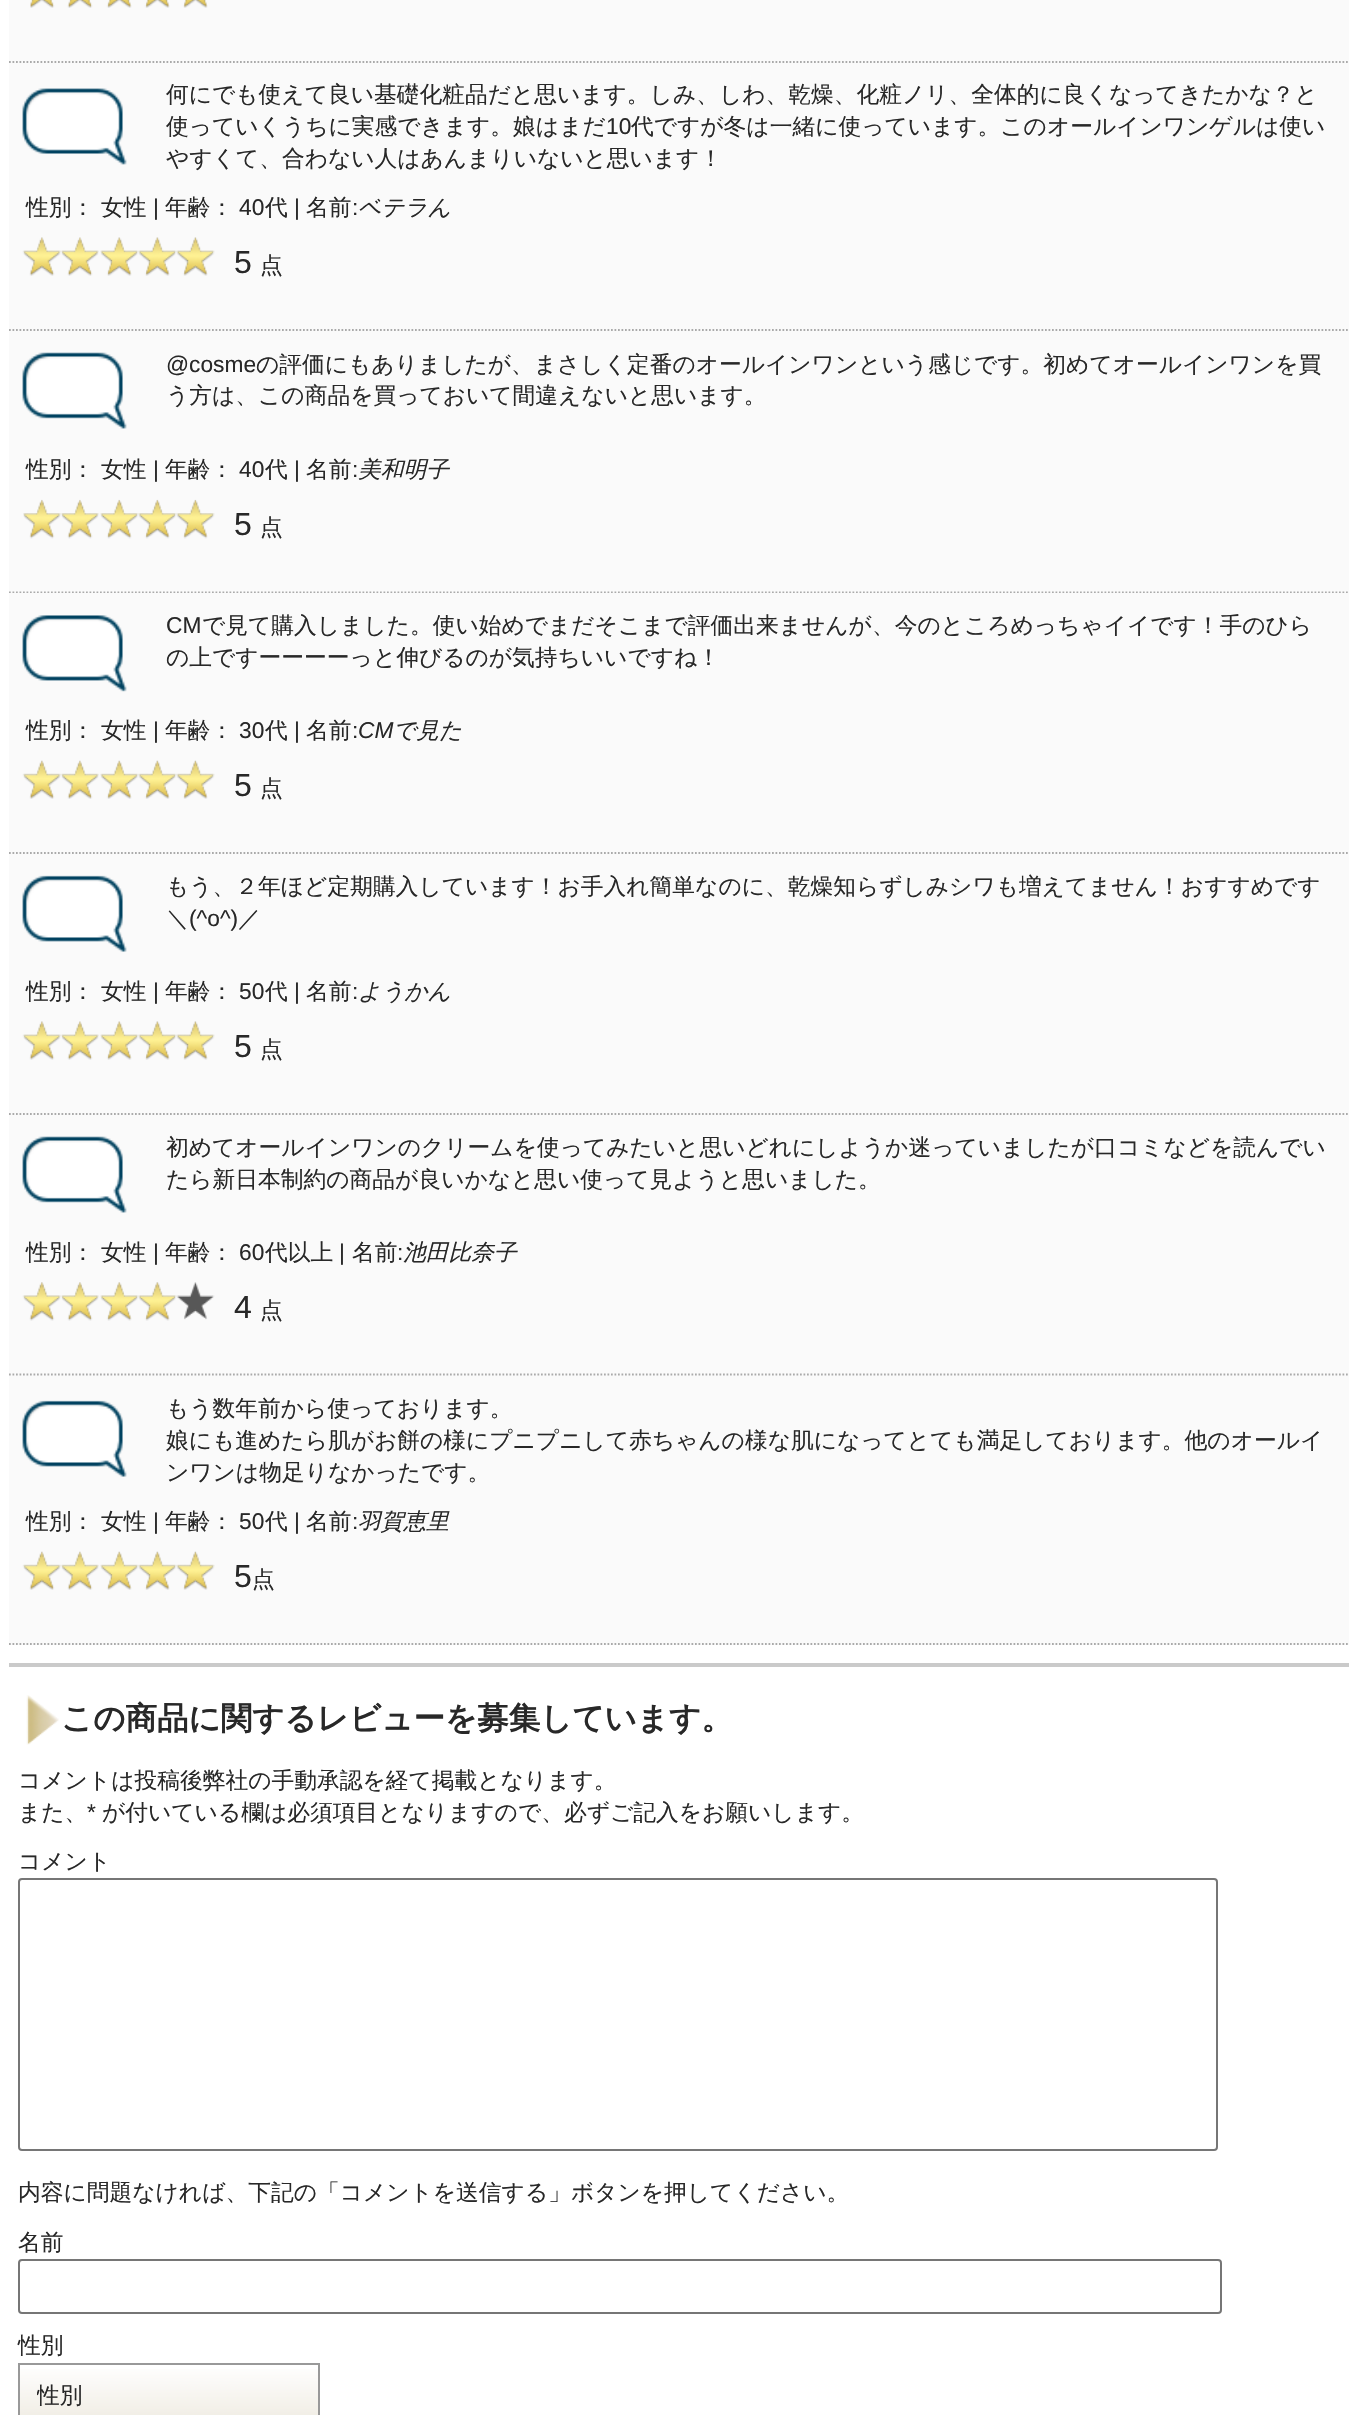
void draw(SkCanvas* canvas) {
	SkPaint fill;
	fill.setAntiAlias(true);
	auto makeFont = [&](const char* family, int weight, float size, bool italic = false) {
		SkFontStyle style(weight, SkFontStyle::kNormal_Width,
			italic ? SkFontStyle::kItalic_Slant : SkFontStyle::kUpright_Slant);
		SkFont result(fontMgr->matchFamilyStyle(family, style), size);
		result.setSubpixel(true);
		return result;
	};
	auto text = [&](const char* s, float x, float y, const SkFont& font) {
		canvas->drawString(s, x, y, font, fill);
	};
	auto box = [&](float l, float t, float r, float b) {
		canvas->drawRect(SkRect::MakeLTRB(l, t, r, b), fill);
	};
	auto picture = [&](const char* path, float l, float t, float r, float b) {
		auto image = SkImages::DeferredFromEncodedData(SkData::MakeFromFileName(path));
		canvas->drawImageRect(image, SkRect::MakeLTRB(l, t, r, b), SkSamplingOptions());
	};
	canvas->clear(0xFFFFFFFF);
	fill.setColor(0xFFCACACA);
	box(9, 1663, 1349, 1667);
	fill.setColor(0xFFFAFAFA);
	box(9, 0, 1349, 593);
	fill.setStyle(SkPaint::kStroke_Style);
	fill.setStrokeWidth(1.8f);
	fill.setColor(0xFFAAAAAA);
	fill.setPathEffect(SkDashPathEffect::Make({{1.75f, 1.75f}}, 0));
	canvas->drawPath(SkPathBuilder().moveTo(9, 62).lineTo(1349, 62).detach(), fill);
	fill.setPathEffect(nullptr);
	picture("image0.png", 30, 0, 208, 8);
	fill.setPathEffect(SkDashPathEffect::Make({{1.75f, 1.75f}}, 0));
	canvas->drawPath(SkPathBuilder().moveTo(9, 330).lineTo(1349, 330).detach(), fill);
	fill.setPathEffect(nullptr);
	picture("image1.png", 22, 88, 127, 165);
	picture("image2.png", 22, 237, 215, 276);
	fill.setPathEffect(SkDashPathEffect::Make({{1.75f, 1.75f}}, 0));
	canvas->drawPath(SkPathBuilder().moveTo(9, 592.5f).lineTo(1349, 592.5f).detach(), fill);
	fill.setPathEffect(nullptr);
	picture("image3.png", 22, 352, 127, 429);
	picture("image4.png", 23, 499, 215, 539);
	fill.setStyle(SkPaint::kFill_Style);
	fill.setColor(0xFFFAFAFA);
	box(9, 593, 1349, 1645);
	fill.setStyle(SkPaint::kStroke_Style);
	fill.setColor(0xFFAAAAAA);
	fill.setPathEffect(SkDashPathEffect::Make({{1.75f, 1.75f}}, 0));
	canvas->drawPath(SkPathBuilder().moveTo(9, 853).lineTo(1349, 853).detach(), fill);
	fill.setPathEffect(nullptr);
	picture("image5.png", 22, 615, 127, 692);
	picture("image6.png", 22, 760, 215, 799);
	fill.setPathEffect(SkDashPathEffect::Make({{1.75f, 1.75f}}, 0));
	canvas->drawPath(SkPathBuilder().moveTo(9, 1114).lineTo(1349, 1114).detach(), fill);
	fill.setPathEffect(nullptr);
	picture("image7.png", 22, 875, 127, 952);
	picture("image2.png", 22, 1021, 215, 1060);
	fill.setPathEffect(SkDashPathEffect::Make({{1.75f, 1.75f}}, 0));
	canvas->drawPath(SkPathBuilder().moveTo(9, 1374.5f).lineTo(1349, 1374.5f).detach(), fill);
	fill.setPathEffect(nullptr);
	picture("image3.png", 22, 1136, 127, 1213);
	picture("image8.png", 22, 1282, 215, 1321);
	fill.setPathEffect(SkDashPathEffect::Make({{1.75f, 1.75f}}, 0));
	canvas->drawPath(SkPathBuilder().moveTo(9, 1644).lineTo(1349, 1644).detach(), fill);
	fill.setPathEffect(nullptr);
	picture("image7.png", 22, 1400, 127, 1477);
	picture("image6.png", 22, 1551, 215, 1590);
	picture("image9.png", 26, 1695, 59, 1745);
	fill.setStrokeWidth(2);
	fill.setColor(0xFF767676);
	canvas->drawRoundRect(SkRect::MakeLTRB(19, 1879, 1217, 2150), 3, 3, fill);
	canvas->drawRoundRect(SkRect::MakeLTRB(19, 2260, 1221, 2313), 3, 3, fill);
	fill.setStyle(SkPaint::kFill_Style);
	{
		const SkColor colors[] = {0xFFFFFFFF, 0xFFEFEBE1};
		const float stops[] = {0, 1};
		const SkPoint ends[] = {{169, 2364}, {169, 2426}};
		fill.setShader(SkGradientShader::MakeLinear(ends, colors, stops, 2, SkTileMode::kClamp));
		fill.setAlpha(255);
	}
	box(20, 2369, 318, 2415);
	fill.setStyle(SkPaint::kStroke_Style);
	fill.setShader(nullptr);
	fill.setColor(0xFF999999);
	canvas->drawRect(SkRect::MakeLTRB(19, 2364, 319, 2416), fill);
	auto font1 = makeFont("WenQuanYi Zen Hei", 500, 22.75f);
	fill.setStyle(SkPaint::kFill_Style);
	fill.setColor(0xFF282828);
	text("何にでも使えて良い基礎化粧品だと思います。しみ、しわ、乾燥、化粧ノリ、全体的に良くなってきたかな？と", 166, 102, font1);
	text("使っていくうちに実感できます。娘はまだ", 166, 134, font1);
	auto font2 = makeFont("Liberation Sans", 400, 22.75f);
	text("10", 606, 134, font2);
	text("代ですが冬は一緒に使っています。このオールインワンゲルは使い", 631, 134, font1);
	text("やすくて、合わない人はあんまりいないと思います！", 166, 166, font1);
	text("性別： 女性", 26, 215, font1);
	text("|", 153, 215, font2);
	text("年齢：", 165, 215, font1);
	text("40", 239, 215, font2);
	text("代", 265, 215, font1);
	text("|", 294, 215, font2);
	text("名前", 306, 215, font1);
	text(":", 352, 215, font2);
	auto font3 = makeFont("WenQuanYi Zen Hei", 500, 22.75f, true);
	text("ベテラん", 358, 215, font3);
	auto font4 = makeFont("Liberation Sans", 400, 32);
	text("5", 234, 273, font4);
	text("点", 260, 273, font1);
	text("@cosme", 166, 372, font2);
	text("の評価にもありましたが、まさしく定番のオールインワンという感じです。初めてオールインワンを買", 256, 372, font1);
	text("う方は、この商品を買っておいて間違えないと思います。", 166, 403, font1);
	text("性別： 女性", 26, 477, font1);
	text("|", 153, 477, font2);
	text("年齢：", 165, 477, font1);
	text("40", 239, 477, font2);
	text("代", 265, 477, font1);
	text("|", 294, 477, font2);
	text("名前", 306, 477, font1);
	text(":", 352, 477, font2);
	text("美和明子", 358, 477, font3);
	text("5", 234, 535, font4);
	text("点", 260, 535, font1);
	text("CM", 166, 633, font2);
	text("で見て購入しました。使い始めでまだそこまで評価出来ませんが、今のところめっちゃイイです！手のひら", 202, 633, font1);
	text("の上ですーーーーっと伸びるのが気持ちいいですね！", 166, 665, font1);
	text("性別： 女性", 26, 738, font1);
	text("|", 153, 738, font2);
	text("年齢：", 165, 738, font1);
	text("30", 239, 738, font2);
	text("代", 265, 738, font1);
	text("|", 294, 738, font2);
	text("名前", 306, 738, font1);
	text(":", 352, 738, font2);
	auto font5 = makeFont("Liberation Sans", 400, 22.75f, true);
	text("CM", 358, 738, font5);
	text("で見た", 393, 738, font3);
	text("5", 234, 796, font4);
	text("点", 260, 796, font1);
	text("もう、２年ほど定期購入しています！お手入れ簡単なのに、乾燥知らずしみシワも増えてません！おすすめです", 166, 894, font1);
	text("＼", 166, 926, font1);
	text("(^o^)", 189, 926, font2);
	text("／", 238, 926, font1);
	text("性別： 女性", 26, 999, font1);
	text("|", 153, 999, font2);
	text("年齢：", 165, 999, font1);
	text("50", 239, 999, font2);
	text("代", 265, 999, font1);
	text("|", 294, 999, font2);
	text("名前", 306, 999, font1);
	text(":", 352, 999, font2);
	text("ようかん", 358, 999, font3);
	text("5", 234, 1057, font4);
	text("点", 260, 1057, font1);
	text("初めてオールインワンのクリームを使ってみたいと思いどれにしようか迷っていましたが口コミなどを読んでい", 166, 1155, font1);
	text("たら新日本制約の商品が良いかなと思い使って見ようと思いました。", 166, 1187, font1);
	text("性別： 女性", 26, 1260, font1);
	text("|", 153, 1260, font2);
	text("年齢：", 165, 1260, font1);
	text("60", 239, 1260, font2);
	text("代以上", 265, 1260, font1);
	text("|", 339, 1260, font2);
	text("名前", 352, 1260, font1);
	text(":", 397, 1260, font2);
	text("池田比奈子", 403, 1260, font3);
	text("4", 234, 1318, font4);
	text("点", 260, 1318, font1);
	text("もう数年前から使っております。", 166, 1416, font1);
	text("娘にも進めたら肌がお餅の様にプニプニして赤ちゃんの様な肌になってとても満足しております。他のオールイ", 166, 1448, font1);
	text("ンワンは物足りなかったです。", 166, 1480, font1);
	text("性別： 女性", 26, 1529, font1);
	text("|", 153, 1529, font2);
	text("年齢：", 165, 1529, font1);
	text("50", 239, 1529, font2);
	text("代", 265, 1529, font1);
	text("|", 294, 1529, font2);
	text("名前", 306, 1529, font1);
	text(":", 352, 1529, font2);
	text("羽賀恵里", 358, 1529, font3);
	text("5", 234, 1587, font4);
	text("点", 252, 1587, font1);
	auto font6 = makeFont("WenQuanYi Zen Hei", 700, 31.5f);
	text("この商品に関するレビューを募集しています。", 61, 1729, font6);
	text("コメントは投稿後弊社の手動承認を経て掲載となります。", 18, 1788, font1);
	text("また、", 18, 1820, font1);
	text("*", 87, 1820, font2);
	text("が付いている欄は必須項目となりますので、必ずご記入をお願いします。", 102, 1820, font1);
	text("コメント", 18, 1869, font1);
	text("内容に問題なければ、下記の「コメントを送信する」ボタンを押してください。", 18, 2200, font1);
	text("名前", 18, 2250, font1);
	text("性別", 18, 2353, font1);
	canvas->save();
	canvas->clipRect(SkRect::MakeLTRB(37, 2382, 301, 2408));
	text("性別", 37, 2403, font1);
	canvas->restore();
}
